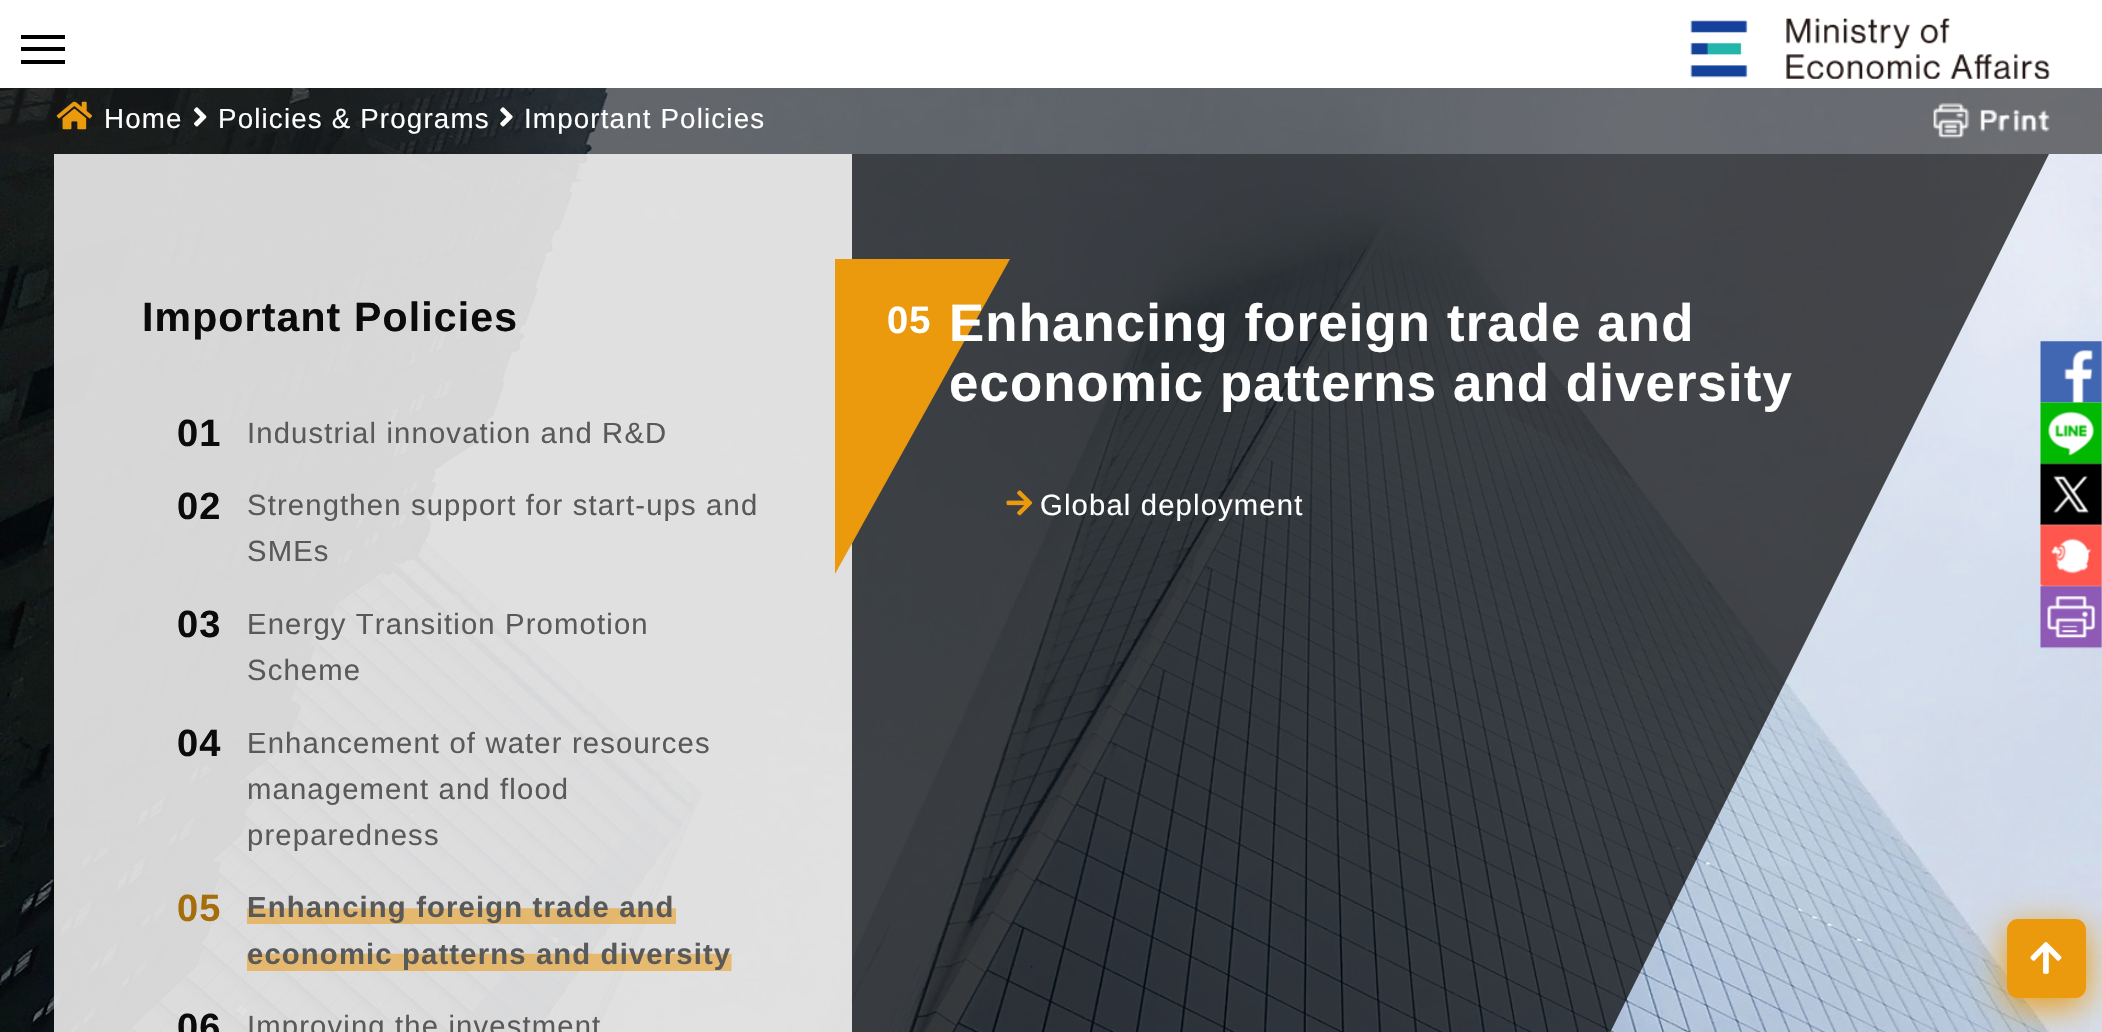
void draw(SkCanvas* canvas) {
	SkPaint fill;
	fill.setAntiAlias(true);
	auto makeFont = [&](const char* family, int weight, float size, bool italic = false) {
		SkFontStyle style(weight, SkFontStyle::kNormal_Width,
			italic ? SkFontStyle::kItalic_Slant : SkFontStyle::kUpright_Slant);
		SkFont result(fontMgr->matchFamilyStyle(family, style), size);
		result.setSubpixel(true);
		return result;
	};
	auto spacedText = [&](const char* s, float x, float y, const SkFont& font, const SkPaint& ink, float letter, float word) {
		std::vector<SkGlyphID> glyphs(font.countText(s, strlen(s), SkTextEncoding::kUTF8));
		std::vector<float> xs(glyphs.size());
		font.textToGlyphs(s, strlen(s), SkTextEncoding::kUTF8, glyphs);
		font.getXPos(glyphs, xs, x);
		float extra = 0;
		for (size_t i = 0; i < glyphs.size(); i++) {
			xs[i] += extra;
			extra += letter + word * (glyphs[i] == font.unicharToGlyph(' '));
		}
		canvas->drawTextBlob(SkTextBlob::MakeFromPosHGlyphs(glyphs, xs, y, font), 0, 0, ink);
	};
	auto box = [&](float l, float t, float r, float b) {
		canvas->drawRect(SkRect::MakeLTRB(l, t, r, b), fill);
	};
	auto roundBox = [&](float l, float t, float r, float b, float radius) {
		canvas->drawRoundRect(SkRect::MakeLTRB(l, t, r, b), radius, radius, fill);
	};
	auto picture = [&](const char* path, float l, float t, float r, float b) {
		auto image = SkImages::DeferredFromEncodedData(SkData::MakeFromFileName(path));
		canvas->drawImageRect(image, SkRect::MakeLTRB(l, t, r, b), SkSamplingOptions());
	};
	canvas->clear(0xFFFFFFFF);
	fill.setColor(0xFF000000);
	box(21, 35, 65, 39);
	box(21, 47, 65, 51);
	box(21, 60, 65, 64);
	picture("image0.png", 1690, 18, 2050, 79);
	picture("image1.png", 0, 88, 2102, 1032);
	fill.setColor(0x991B1B1B);
	box(0, 88, 2102, 154);
	picture("image2.png", 56, 101, 93, 130);
	picture("image3.png", 194, 107, 207, 127);
	picture("image4.png", 500, 107, 513, 127);
	picture("image5.png", 1933, 102, 2050, 139);
	fill.setColor(0xF2E2E0E0);
	box(54, 154, 852, 1032);
	picture("image6.png", 247, 908, 732, 971);
	fill.setColor(0xB3000000);
	canvas->drawPath(SkPathBuilder().moveTo(852, 154).lineTo(2049, 154).lineTo(1437, 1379).lineTo(852, 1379).close().detach(), fill);
	fill.setColor(0xFFEA9A0C);
	canvas->drawPath(SkPathBuilder().moveTo(835, 259).lineTo(1010, 259).lineTo(835, 574).close().detach(), fill);
	picture("image7.png", 1006, 490, 1033, 516);
	picture("image8.png", 2040, 341, 2102, 404);
	picture("image9.png", 2040, 402, 2102, 465);
	picture("image10.png", 2040, 463, 2102, 526);
	picture("image11.png", 2040, 524, 2102, 587);
	picture("image12.png", 2040, 586, 2102, 649);
	fill.setMaskFilter(SkMaskFilter::MakeBlur(kNormal_SkBlurStyle, 17.5f));
	canvas->drawRoundRect(SkRect::MakeLTRB(2007, 928, 2086, 1006), 11, 11, fill);
	fill.setMaskFilter(nullptr);
	roundBox(2007, 919, 2086, 998, 11);
	picture("image13.png", 2030, 942, 2062, 974);
	auto font1 = makeFont("Liberation Sans", 400, 27.75f);
	fill.setColor(0xFFFFFFFF);
	spacedText("Home", 104, 128, font1, fill, 1.15f, 0);
	spacedText("Policies & Programs", 218, 128, font1, fill, 1.15f, 0);
	spacedText("Important Policies", 524, 128, font1, fill, 1.15f, 0);
	auto font2 = makeFont("Liberation Sans", 700, 41);
	fill.setColor(0xFF0B0B0B);
	spacedText("Important Policies", 142, 331, font2, fill, 1.15f, 0);
	auto font3 = makeFont("Liberation Sans", 700, 38);
	spacedText("01", 177, 446, font3, fill, 1.15f, 0);
	auto font4 = makeFont("Liberation Sans", 400, 29.25f);
	fill.setColor(0xFF5A5959);
	spacedText("Industrial innovation and R&D", 247, 443, font4, fill, 1.15f, 0);
	fill.setColor(0xFF0B0B0B);
	spacedText("02", 177, 519, font3, fill, 1.15f, 0);
	fill.setColor(0xFF5A5959);
	spacedText("Strengthen support for start-ups and", 247, 515, font4, fill, 1.15f, 0);
	spacedText("SMEs", 247, 561, font4, fill, 1.15f, 0);
	fill.setColor(0xFF0B0B0B);
	spacedText("03", 177, 637, font3, fill, 1.15f, 0);
	fill.setColor(0xFF5A5959);
	spacedText("Energy Transition Promotion", 247, 634, font4, fill, 1.15f, 0);
	spacedText("Scheme", 247, 680, font4, fill, 1.15f, 0);
	fill.setColor(0xFF0B0B0B);
	spacedText("04", 177, 756, font3, fill, 1.15f, 0);
	fill.setColor(0xFF5A5959);
	spacedText("Enhancement of water resources", 247, 753, font4, fill, 1.15f, 0);
	spacedText("management and flood", 247, 799, font4, fill, 1.15f, 0);
	spacedText("preparedness", 247, 845, font4, fill, 1.15f, 0);
	fill.setColor(0xFFA56E0B);
	spacedText("05", 177, 921, font3, fill, 1.15f, 0);
	auto font5 = makeFont("Liberation Sans", 700, 29.25f);
	fill.setColor(0xFF5A5959);
	spacedText("Enhancing foreign trade and", 247, 917, font5, fill, 1.15f, 0);
	spacedText("economic patterns and diversity", 247, 964, font5, fill, 1.15f, 0);
	fill.setColor(0xFF0B0B0B);
	spacedText("06", 177, 1040, font3, fill, 1.15f, 0);
	fill.setColor(0xFF5A5959);
	spacedText("Improving the investment", 247, 1036, font4, fill, 1.15f, 0);
	fill.setColor(0xFFFFFFFF);
	spacedText("05", 887, 333, font3, fill, 1.15f, 0);
	auto font6 = makeFont("Liberation Sans", 700, 52.7f);
	spacedText("Enhancing foreign trade and", 949, 341, font6, fill, 1.15f, 0);
	spacedText("economic patterns and diversity", 949, 401, font6, fill, 1.15f, 0);
	spacedText("Global deployment", 1040, 515, font4, fill, 1.15f, 0);
}
